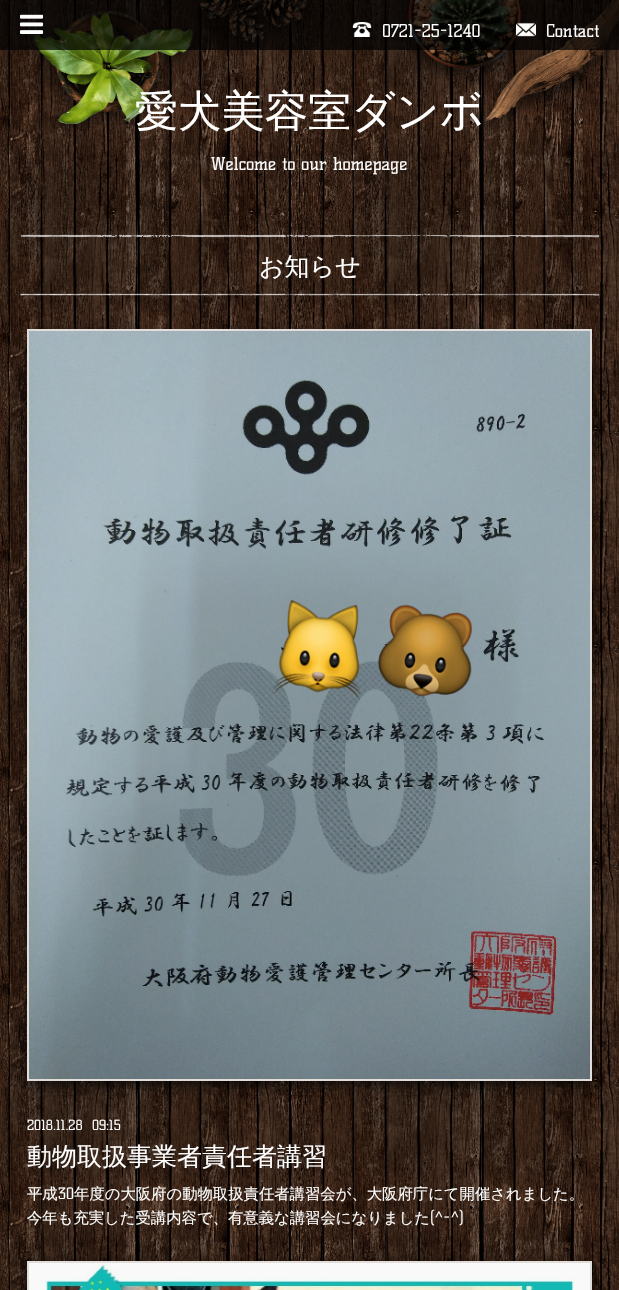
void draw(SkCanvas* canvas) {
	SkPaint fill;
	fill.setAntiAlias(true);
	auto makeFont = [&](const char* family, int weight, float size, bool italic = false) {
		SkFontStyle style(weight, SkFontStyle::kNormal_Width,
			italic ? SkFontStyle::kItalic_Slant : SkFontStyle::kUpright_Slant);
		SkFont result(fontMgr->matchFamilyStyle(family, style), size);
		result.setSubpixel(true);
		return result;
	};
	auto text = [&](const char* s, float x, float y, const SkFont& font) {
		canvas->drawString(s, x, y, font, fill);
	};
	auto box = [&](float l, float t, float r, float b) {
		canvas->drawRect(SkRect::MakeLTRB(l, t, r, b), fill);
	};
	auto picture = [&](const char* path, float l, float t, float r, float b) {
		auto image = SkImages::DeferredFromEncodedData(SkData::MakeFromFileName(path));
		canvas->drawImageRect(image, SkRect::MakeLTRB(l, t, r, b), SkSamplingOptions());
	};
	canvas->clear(0xFFFFFFFF);
	picture("image0.png", 0, 0, 619, 1290);
	picture("image1.png", 28, 0, 619, 137);
	fill.setColor(0xB3000000);
	box(0, 0, 619, 50);
	picture("image2.png", 20, 14, 44, 34);
	picture("image3.png", 352, 22, 372, 37);
	picture("image4.png", 516, 22, 536, 37);
	picture("image5.png", 20, 234, 599, 238);
	picture("image6.png", 20, 293, 599, 296);
	fill.setColor(0xFF030303);
	fill.setMaskFilter(SkMaskFilter::MakeBlur(kNormal_SkBlurStyle, 7));
	canvas->drawRect(SkRect::MakeLTRB(29, 335, 590, 1083), fill);
	fill.setMaskFilter(nullptr);
	fill.setStyle(SkPaint::kStroke_Style);
	fill.setStrokeWidth(2);
	fill.setColor(0xFFE3DDD9);
	canvas->drawRect(SkRect::MakeLTRB(28, 330, 591, 1080), fill);
	picture("image7.png", 29, 331, 590, 1079);
	fill.setStyle(SkPaint::kFill_Style);
	fill.setColor(0xFF030303);
	fill.setMaskFilter(SkMaskFilter::MakeBlur(kNormal_SkBlurStyle, 7));
	canvas->drawRect(SkRect::MakeLTRB(29, 1267, 590, 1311), fill);
	fill.setMaskFilter(nullptr);
	fill.setStyle(SkPaint::kStroke_Style);
	fill.setColor(0xFFE3DDD9);
	canvas->drawRect(SkRect::MakeLTRB(28, 1262, 591, 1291), fill);
	picture("image8.png", 29, 1263, 590, 1290);
	auto font1 = makeFont("Kelly Slab", 400, 17.25f);
	fill.setStyle(SkPaint::kFill_Style);
	fill.setColor(0xFFFFFFFF);
	text("0721-25-1240", 382, 37, font1);
	text("Contact", 546, 37, font1);
	auto font2 = makeFont("WenQuanYi Zen Hei", 500, 43.25f);
	text("愛犬美容室ダンボ", 135, 126, font2);
	text("Welcome to our homepage", 211, 170, font1);
	auto font3 = makeFont("WenQuanYi Zen Hei", 500, 25);
	text("お知らせ", 259, 275, font3);
	auto font4 = makeFont("Kelly Slab", 400, 13.5f);
	text("2018.11.28  09:15", 27, 1130, font4);
	text("動物取扱事業者責任者講習", 27, 1165, font3);
	auto font5 = makeFont("WenQuanYi Zen Hei", 500, 15.35f);
	text("平成", 27, 1199, font5);
	auto font6 = makeFont("Kelly Slab", 400, 15.35f);
	text("30", 58, 1199, font6);
	text("年度の大阪府の動物取扱責任者講習会が、大阪府庁にて開催されました。", 74, 1199, font5);
	text("今年も充実した受講内容で、有意義な講習会になりました", 27, 1223, font5);
	text("(^-^)", 430, 1223, font6);
}
